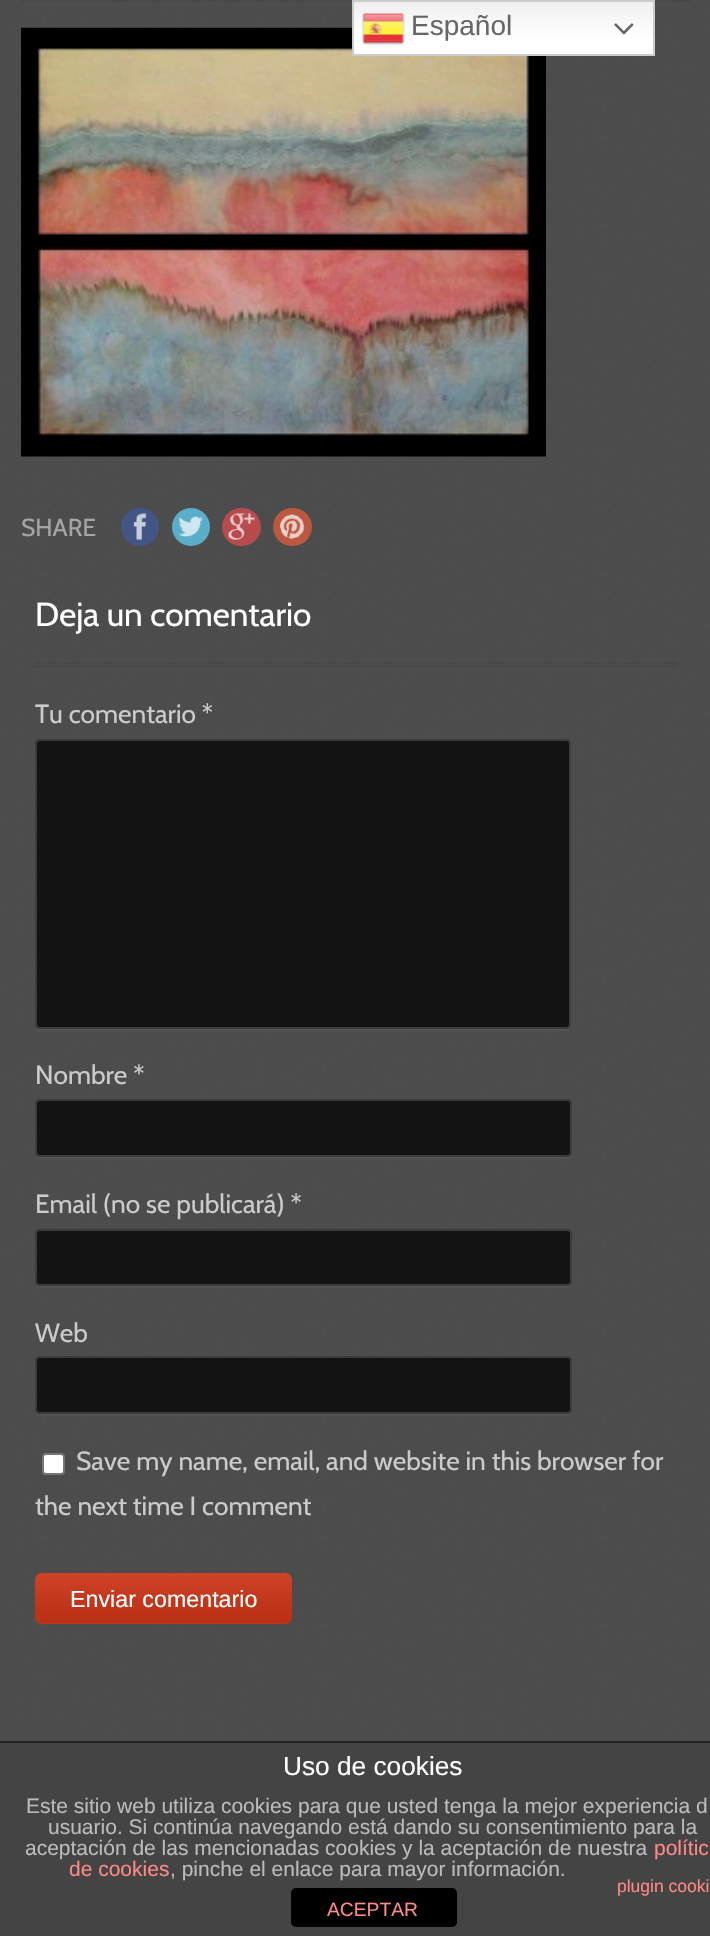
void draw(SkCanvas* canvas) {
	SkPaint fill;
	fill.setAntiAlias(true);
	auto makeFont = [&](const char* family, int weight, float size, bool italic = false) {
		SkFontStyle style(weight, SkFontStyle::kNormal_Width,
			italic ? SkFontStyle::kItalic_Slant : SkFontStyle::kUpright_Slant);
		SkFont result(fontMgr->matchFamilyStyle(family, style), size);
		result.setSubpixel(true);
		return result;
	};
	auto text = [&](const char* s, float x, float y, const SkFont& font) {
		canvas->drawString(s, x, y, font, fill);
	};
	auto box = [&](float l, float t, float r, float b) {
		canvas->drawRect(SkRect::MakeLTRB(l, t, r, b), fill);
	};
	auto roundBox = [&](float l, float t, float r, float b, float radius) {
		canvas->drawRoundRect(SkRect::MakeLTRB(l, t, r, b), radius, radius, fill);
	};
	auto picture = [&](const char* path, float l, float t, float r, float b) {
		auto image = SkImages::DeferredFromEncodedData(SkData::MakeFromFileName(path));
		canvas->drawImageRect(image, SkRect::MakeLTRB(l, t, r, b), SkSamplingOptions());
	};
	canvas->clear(0xFF6A6A6A);
	picture("image0.png", 0, 0, 710, 1741);
	picture("image3.png", 21, 27, 546, 457);
	{
		const SkColor colors[] = {0xFFEFEFEF, 0xFFFFFFFF};
		const float stops[] = {0, 0.7f};
		const SkPoint ends[] = {{503, 0}, {503, 56}};
		fill.setShader(SkGradientShader::MakeLinear(ends, colors, stops, 2, SkTileMode::kClamp));
		fill.setAlpha(255);
	}
	box(354, 2, 653, 54);
	fill.setShader(nullptr);
	fill.setColor(0xCC464646);
	box(21, 0, 690, 2);
	fill.setStyle(SkPaint::kStroke_Style);
	fill.setStrokeWidth(2);
	fill.setColor(0xFFCCCCCC);
	canvas->drawRect(SkRect::MakeLTRB(353, 1, 654, 55), fill);
	picture("image1.png", 362, 12, 405, 45);
	picture("image2.png", 614, 23, 634, 35);
	fill.setStyle(SkPaint::kFill_Style);
	fill.setColor(0xB33D599B);
	canvas->drawCircle(140, 527, 19, fill);
	picture("image4.png", 133, 513, 147, 540);
	fill.setColor(0xB360D7FD);
	canvas->drawCircle(191, 527, 19, fill);
	picture("image5.png", 178, 516, 203, 537);
	fill.setColor(0xB3E54A4F);
	roundBox(222, 508, 261, 546, 19);
	picture("image6.png", 228, 513, 255, 540);
	fill.setColor(0xB3E85D3A);
	roundBox(273, 508, 312, 546, 19);
	picture("image7.png", 280, 514, 305, 539);
	fill.setColor(0xCC464646);
	box(35, 662, 676, 664);
	box(35, 665, 676, 667);
	fill.setColor(0x0AFFFFFF);
	canvas->drawPath(SkPathBuilder().moveTo(35, 1024).lineTo(35, 1026).cubicTo(35, 1029, 37, 1031, 40, 1031).lineTo(566, 1031).cubicTo(569, 1031, 571, 1029, 571, 1026).lineTo(571, 745).lineTo(570, 743).lineTo(570, 1024).cubicTo(570, 1027, 568, 1029, 565, 1029).lineTo(40, 1029).cubicTo(37, 1029, 35, 1027, 35, 1024).close().detach(), fill);
	fill.setColor(0xE60C0C0C);
	roundBox(35, 739, 571, 1029, 5);
	fill.setStyle(SkPaint::kStroke_Style);
	fill.setColor(0xCC464646);
	canvas->drawRoundRect(SkRect::MakeLTRB(36, 740, 570, 1028), 4, 4, fill);
	fill.setStyle(SkPaint::kFill_Style);
	fill.setColor(0x0AFFFFFF);
	canvas->drawPath(SkPathBuilder().moveTo(35, 1152).cubicTo(35, 1155, 36, 1159, 40, 1159).lineTo(567, 1159).cubicTo(570, 1159, 572, 1156, 572, 1153).cubicTo(571, 1155, 569, 1157, 567, 1157).lineTo(40, 1157).cubicTo(37, 1157, 35, 1154, 35, 1152).close().detach(), fill);
	fill.setColor(0xE60C0C0C);
	roundBox(35, 1099, 572, 1157, 5);
	fill.setStyle(SkPaint::kStroke_Style);
	fill.setColor(0xCC464646);
	canvas->drawRoundRect(SkRect::MakeLTRB(36, 1100, 571, 1156), 4, 4, fill);
	fill.setStyle(SkPaint::kFill_Style);
	fill.setColor(0x0AFFFFFF);
	canvas->drawPath(SkPathBuilder().moveTo(35, 1281).cubicTo(35, 1284, 36, 1288, 40, 1288).lineTo(567, 1288).cubicTo(570, 1288, 572, 1285, 572, 1283).cubicTo(571, 1285, 569, 1286, 567, 1286).lineTo(40, 1286).cubicTo(37, 1286, 35, 1284, 35, 1281).close().detach(), fill);
	fill.setColor(0xE60C0C0C);
	roundBox(35, 1229, 572, 1286, 5);
	fill.setStyle(SkPaint::kStroke_Style);
	fill.setColor(0xCC464646);
	canvas->drawRoundRect(SkRect::MakeLTRB(36, 1230, 571, 1285), 4, 4, fill);
	fill.setStyle(SkPaint::kFill_Style);
	fill.setColor(0x0AFFFFFF);
	canvas->drawPath(SkPathBuilder().moveTo(35, 1409).lineTo(35, 1411).cubicTo(35, 1414, 37, 1416, 40, 1416).lineTo(567, 1416).cubicTo(570, 1416, 572, 1414, 572, 1411).lineTo(572, 1410).cubicTo(571, 1412, 569, 1414, 567, 1414).lineTo(40, 1414).cubicTo(37, 1414, 35, 1412, 35, 1409).close().detach(), fill);
	fill.setColor(0xE60C0C0C);
	roundBox(35, 1356, 572, 1414, 5);
	fill.setStyle(SkPaint::kStroke_Style);
	fill.setColor(0xCC464646);
	canvas->drawRoundRect(SkRect::MakeLTRB(36, 1357, 571, 1413), 4, 4, fill);
	fill.setStyle(SkPaint::kFill_Style);
	fill.setColor(0xFFFFFFFF);
	canvas->drawRoundRect(SkRect::MakeLTRB(43, 1454, 64, 1474), 3, 3, fill);
	fill.setStyle(SkPaint::kStroke_Style);
	fill.setColor(0xFF767676);
	canvas->drawRoundRect(SkRect::MakeLTRB(43, 1454, 64, 1474), 3, 3, fill);
	fill.setStyle(SkPaint::kFill_Style);
	fill.setColor(0xFFDE3917);
	roundBox(35, 1573, 292, 1624, 7);
	picture("image8.png", 35, 1573, 292, 1624);
	fill.setColor(0xFF444444);
	box(0, 1743, 710, 1936);
	fill.setColor(0xFF222222);
	box(0, 1741, 710, 1743);
	fill.setColor(0xFF000000);
	roundBox(291, 1888, 457, 1927, 5);
	auto font1 = makeFont("Liberation Sans", 400, 28);
	fill.setColor(0xFF666666);
	text("Español", 411, 35, font1);
	auto font2 = makeFont("Cabin", 400, 24.5f);
	fill.setColor(0xFFA5A5A5);
	text("SHARE", 21, 536, font2);
	auto font3 = makeFont("Cabin", 400, 33.25f);
	fill.setColor(0xFFFFFFFF);
	text("Deja un comentario", 35, 626, font3);
	auto font4 = makeFont("Cabin", 400, 26.25f);
	fill.setColor(0xFFCBCBCB);
	text("Tu comentario *", 35, 723, font4);
	text("Nombre *", 35, 1084, font4);
	text("Email (no se publicará) *", 35, 1213, font4);
	text("Web", 35, 1342, font4);
	text("Save my name, email, and website in this browser for", 76, 1470, font4);
	text("the next time I comment", 35, 1515, font4);
	auto font5 = makeFont("Liberation Sans", 400, 23.25f);
	fill.setColor(0xFFFFFFFF);
	text("Enviar comentario", 70, 1607, font5);
	auto font6 = makeFont("Liberation Sans", 400, 26.25f);
	text("Uso de cookies", 283, 1775, font6);
	auto font7 = makeFont("Liberation Sans", 400, 21);
	fill.setColor(0xFFBBBBBB);
	text("Este sitio web utiliza cookies para que usted tenga la mejor experiencia d", 26, 1813, font7);
	text("usuario. Si continúa navegando está dando su consentimiento para la", 48, 1834, font7);
	text("aceptación de las mencionadas cookies y la aceptación de nuestra", 25, 1855, font7);
	fill.setColor(0xFFFF8888);
	text("polític", 654, 1855, font7);
	text("de cookies", 69, 1876, font7);
	fill.setColor(0xFFBBBBBB);
	text(", pinche el enlace para mayor información.", 170, 1876, font7);
	auto font8 = makeFont("Liberation Sans", 400, 17.5f);
	fill.setColor(0xFFFF8888);
	text("plugin cooki", 617, 1892, font8);
	auto font9 = makeFont("Liberation Sans", 400, 19.25f);
	text("ACEPTAR", 327, 1916, font9);
}
